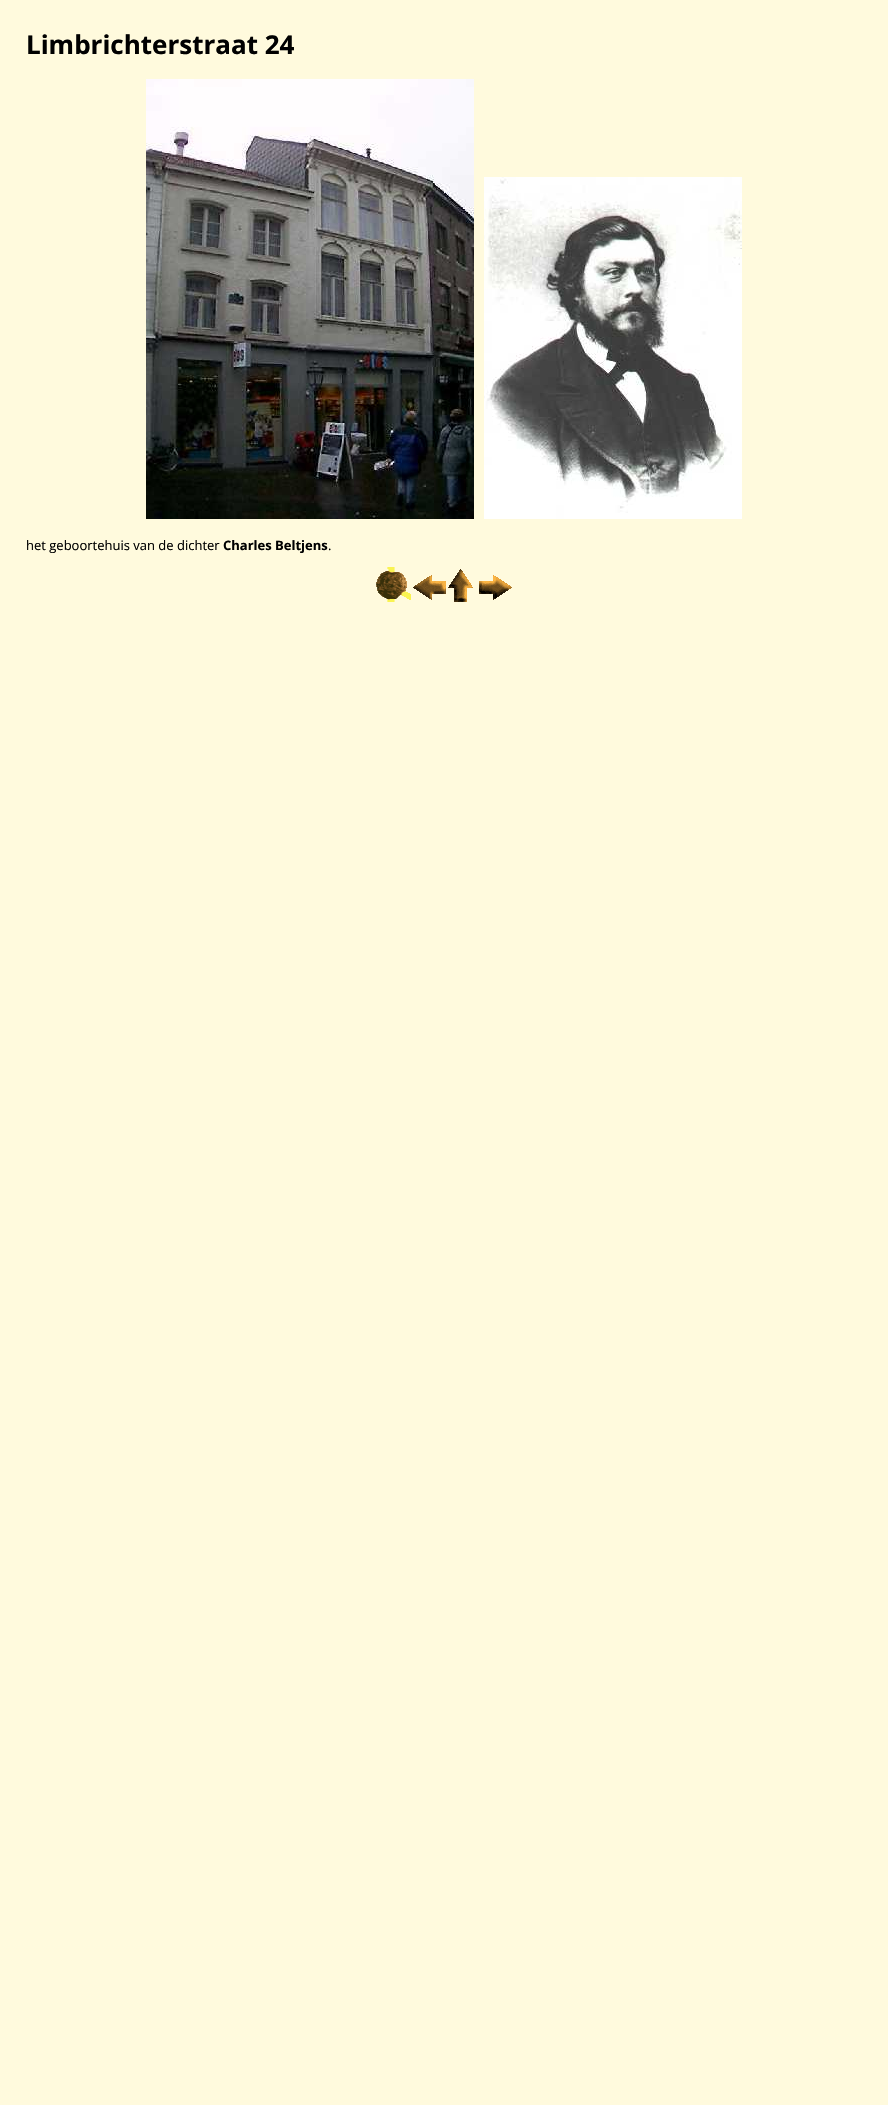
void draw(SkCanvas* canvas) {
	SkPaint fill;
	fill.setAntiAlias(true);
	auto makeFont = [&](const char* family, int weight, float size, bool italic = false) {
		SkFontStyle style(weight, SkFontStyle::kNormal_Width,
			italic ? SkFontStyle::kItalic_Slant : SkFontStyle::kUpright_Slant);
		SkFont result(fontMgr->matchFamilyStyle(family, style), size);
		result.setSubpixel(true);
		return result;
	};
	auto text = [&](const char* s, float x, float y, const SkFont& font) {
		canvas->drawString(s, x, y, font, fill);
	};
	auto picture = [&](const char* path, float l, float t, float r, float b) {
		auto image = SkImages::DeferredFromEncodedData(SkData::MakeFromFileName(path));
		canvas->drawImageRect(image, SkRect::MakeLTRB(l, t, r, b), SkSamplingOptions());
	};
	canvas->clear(0xFFFFFADD);
	picture("image0.png", 146, 79, 474, 519);
	picture("image1.png", 484, 177, 742, 519);
	picture("image2.png", 376, 567, 411, 602);
	picture("image3.png", 413, 575, 446, 600);
	picture("image4.png", 448, 569, 473, 602);
	picture("image5.png", 479, 575, 512, 600);
	auto font1 = makeFont("Open Sans", 700, 26);
	fill.setColor(0xFF000000);
	text("Limbrichterstraat 24", 26, 54, font1);
	auto font2 = makeFont("Open Sans", 400, 13);
	text("het geboortehuis van de dichter", 26, 550, font2);
	auto font3 = makeFont("Open Sans", 700, 13);
	text("Charles Beltjens", 223, 550, font3);
	text(".", 328, 550, font2);
}
